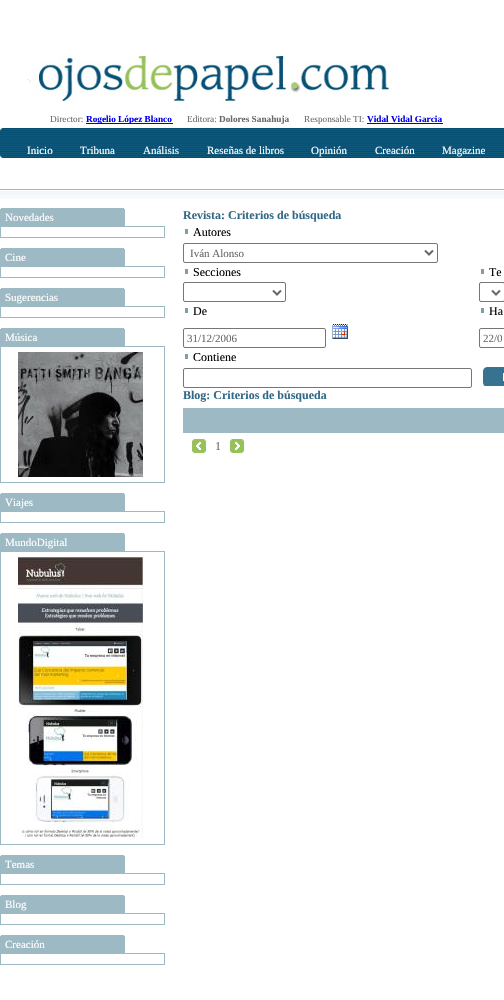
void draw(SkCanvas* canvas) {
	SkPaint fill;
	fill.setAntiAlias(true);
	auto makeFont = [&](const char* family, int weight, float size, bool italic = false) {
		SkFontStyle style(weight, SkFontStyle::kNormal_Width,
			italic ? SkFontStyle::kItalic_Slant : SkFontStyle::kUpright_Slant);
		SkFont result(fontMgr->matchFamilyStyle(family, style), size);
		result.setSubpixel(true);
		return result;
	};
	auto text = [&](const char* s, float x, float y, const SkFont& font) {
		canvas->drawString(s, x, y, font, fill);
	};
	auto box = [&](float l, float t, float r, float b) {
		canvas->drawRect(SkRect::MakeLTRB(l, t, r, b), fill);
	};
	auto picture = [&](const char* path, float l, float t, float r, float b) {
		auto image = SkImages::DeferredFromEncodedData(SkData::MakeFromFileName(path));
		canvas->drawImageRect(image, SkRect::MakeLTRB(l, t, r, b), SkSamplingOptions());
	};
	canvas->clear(0xFFFFFFFF);
	picture("image0.png", 27, 53, 392, 103);
	fill.setColor(0xFF0000EE);
	box(86, 123, 173, 124);
	box(367, 123, 443, 124);
	fill.setColor(0xFF034D72);
	box(3, 128, 504, 158);
	picture("image1.png", 3, 129, 504, 157);
	picture("image2.png", 0, 128, 3, 158);
	picture("image3.png", 0, 191, 504, 199);
	fill.setColor(0xFF9DB9C4);
	box(0, 189, 504, 190);
	box(0, 209, 125, 226);
	box(1, 208, 124, 209);
	fill.setStyle(SkPaint::kStroke_Style);
	fill.setStrokeWidth(1);
	canvas->drawRect(SkRect::MakeLTRB(0.5f, 226.5f, 164.5f, 237.5f), fill);
	fill.setStyle(SkPaint::kFill_Style);
	box(0, 249, 125, 266);
	box(1, 248, 124, 249);
	fill.setStyle(SkPaint::kStroke_Style);
	canvas->drawRect(SkRect::MakeLTRB(0.5f, 266.5f, 164.5f, 277.5f), fill);
	fill.setStyle(SkPaint::kFill_Style);
	box(0, 289, 125, 306);
	box(1, 288, 124, 289);
	fill.setStyle(SkPaint::kStroke_Style);
	canvas->drawRect(SkRect::MakeLTRB(0.5f, 306.5f, 164.5f, 317.5f), fill);
	fill.setStyle(SkPaint::kFill_Style);
	box(0, 329, 125, 346);
	box(1, 328, 124, 329);
	fill.setStyle(SkPaint::kStroke_Style);
	canvas->drawRect(SkRect::MakeLTRB(0.5f, 346.5f, 164.5f, 482.5f), fill);
	picture("image4.png", 18, 352, 143, 477);
	fill.setStyle(SkPaint::kFill_Style);
	box(0, 494, 125, 511);
	box(1, 493, 124, 494);
	fill.setStyle(SkPaint::kStroke_Style);
	canvas->drawRect(SkRect::MakeLTRB(0.5f, 511.5f, 164.5f, 522.5f), fill);
	fill.setStyle(SkPaint::kFill_Style);
	box(0, 534, 125, 551);
	box(1, 533, 124, 534);
	fill.setStyle(SkPaint::kStroke_Style);
	canvas->drawRect(SkRect::MakeLTRB(0.5f, 551.5f, 164.5f, 844.5f), fill);
	picture("image5.png", 18, 557, 143, 839);
	fill.setStyle(SkPaint::kFill_Style);
	box(0, 856, 125, 873);
	box(1, 855, 124, 856);
	fill.setStyle(SkPaint::kStroke_Style);
	canvas->drawRect(SkRect::MakeLTRB(0.5f, 873.5f, 164.5f, 884.5f), fill);
	fill.setStyle(SkPaint::kFill_Style);
	box(0, 896, 125, 913);
	box(1, 895, 124, 896);
	fill.setStyle(SkPaint::kStroke_Style);
	canvas->drawRect(SkRect::MakeLTRB(0.5f, 913.5f, 164.5f, 924.5f), fill);
	fill.setStyle(SkPaint::kFill_Style);
	box(0, 936, 125, 953);
	box(1, 935, 124, 936);
	fill.setStyle(SkPaint::kStroke_Style);
	canvas->drawRect(SkRect::MakeLTRB(0.5f, 953.5f, 164.5f, 964.5f), fill);
	fill.setStyle(SkPaint::kFill_Style);
	fill.setColor(0xFF7C9FA8);
	box(185, 229, 188, 234);
	fill.setStyle(SkPaint::kStroke_Style);
	fill.setColor(0xFF767676);
	canvas->drawRoundRect(SkRect::MakeLTRB(183.5f, 243.5f, 437.5f, 262.5f), 1.5f, 1.5f, fill);
	fill.setStrokeWidth(2);
	fill.setColor(0xFF696969);
	canvas->drawPath(SkPathBuilder().moveTo(425, 250.5f).lineTo(429, 254.5f).lineTo(433, 250.5f).detach(), fill);
	fill.setStyle(SkPaint::kFill_Style);
	fill.setColor(0xFF7C9FA8);
	box(185, 269, 188, 274);
	fill.setStyle(SkPaint::kStroke_Style);
	fill.setStrokeWidth(1);
	fill.setColor(0xFF767676);
	canvas->drawRoundRect(SkRect::MakeLTRB(183.5f, 282.5f, 285.5f, 301.5f), 1.5f, 1.5f, fill);
	fill.setStrokeWidth(2);
	fill.setColor(0xFF696969);
	canvas->drawPath(SkPathBuilder().moveTo(273, 290.5f).lineTo(277, 294.5f).lineTo(281, 290.5f).detach(), fill);
	fill.setStyle(SkPaint::kFill_Style);
	fill.setColor(0xFF7C9FA8);
	box(481, 269, 484, 274);
	fill.setStyle(SkPaint::kStroke_Style);
	fill.setStrokeWidth(1);
	fill.setColor(0xFF767676);
	canvas->drawRoundRect(SkRect::MakeLTRB(479.5f, 282.5f, 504.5f, 301.5f), 1.5f, 1.5f, fill);
	fill.setStrokeWidth(2);
	fill.setColor(0xFF696969);
	canvas->drawPath(SkPathBuilder().moveTo(492, 290.5f).lineTo(496, 294.5f).lineTo(500, 290.5f).detach(), fill);
	fill.setStyle(SkPaint::kFill_Style);
	fill.setColor(0xFF7C9FA8);
	box(185, 308, 188, 313);
	fill.setStyle(SkPaint::kStroke_Style);
	fill.setStrokeWidth(1);
	fill.setColor(0xFF767676);
	canvas->drawRoundRect(SkRect::MakeLTRB(183.5f, 328.5f, 325.5f, 347.5f), 1.5f, 1.5f, fill);
	picture("image6.png", 332, 324, 348, 339);
	fill.setStyle(SkPaint::kFill_Style);
	fill.setColor(0xFF7C9FA8);
	box(481, 308, 484, 313);
	fill.setStyle(SkPaint::kStroke_Style);
	fill.setColor(0xFF767676);
	canvas->drawRoundRect(SkRect::MakeLTRB(479.5f, 328.5f, 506.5f, 347.5f), 1.5f, 1.5f, fill);
	fill.setStyle(SkPaint::kFill_Style);
	fill.setColor(0xFF7C9FA8);
	box(185, 354, 188, 359);
	fill.setStyle(SkPaint::kStroke_Style);
	fill.setColor(0xFF767676);
	canvas->drawRoundRect(SkRect::MakeLTRB(183.5f, 368.5f, 471.5f, 387.5f), 1.5f, 1.5f, fill);
	picture("image7.png", 481, 366, 504, 386);
	fill.setStyle(SkPaint::kFill_Style);
	fill.setColor(0xFF9DB9C4);
	box(183, 408, 504, 433);
	picture("image8.png", 191, 438, 207, 454);
	picture("image9.png", 229, 438, 245, 454);
	auto font1 = makeFont("Liberation Serif", 400, 9.25f);
	fill.setColor(0xFF696969);
	text("Director:", 50, 122, font1);
	auto font2 = makeFont("Liberation Serif", 700, 9.25f);
	fill.setColor(0xFF0000EE);
	text("Rogelio López Blanco", 86, 122, font2);
	fill.setColor(0xFF696969);
	text("Editora:", 187, 122, font1);
	text("Dolores Sanahuja", 219, 122, font2);
	text("Responsable TI:", 304, 122, font1);
	fill.setColor(0xFF0000EE);
	text("Vidal Vidal Garcia", 367, 122, font2);
	auto font3 = makeFont("Liberation Serif", 400, 11);
	fill.setColor(0xFFFFFFFF);
	text("Inicio", 27, 154, font3);
	text("Tribuna", 80, 154, font3);
	text("Análisis", 143, 154, font3);
	text("Reseñas de libros", 207, 154, font3);
	text("Opinión", 311, 154, font3);
	text("Creación", 375, 154, font3);
	text("Magazine", 442, 154, font3);
	text("Novedades", 5, 221, font3);
	text("Cine", 5, 261, font3);
	text("Sugerencias", 5, 301, font3);
	text("Música", 5, 341, font3);
	text("Viajes", 5, 506, font3);
	text("MundoDigital", 5, 546, font3);
	text("Temas", 5, 868, font3);
	text("Blog", 5, 908, font3);
	text("Creación", 5, 948, font3);
	auto font4 = makeFont("Liberation Serif", 700, 12);
	fill.setColor(0xFF326987);
	text("Revista: Criterios de búsqueda", 183, 219, font4);
	auto font5 = makeFont("Liberation Serif", 400, 12);
	fill.setColor(0xFF000000);
	text("Autores", 193, 236, font5);
	fill.setColor(0xFF696969);
	text("Iván Alonso", 190, 257, font3);
	fill.setColor(0xFF000000);
	text("Secciones", 193, 276, font5);
	text("Te", 489, 276, font5);
	text("De", 193, 315, font5);
	fill.setColor(0xFF696969);
	text("31/12/2006", 187, 342, font3);
	fill.setColor(0xFF000000);
	text("Ha", 489, 315, font5);
	fill.setColor(0xFF696969);
	text("22/0", 483, 342, font3);
	fill.setColor(0xFF000000);
	text("Contiene", 193, 361, font5);
	fill.setColor(0xFF326987);
	text("Blog: Criterios de búsqueda", 183, 399, font4);
	fill.setColor(0xFF696969);
	text("1", 215, 450, font5);
}
